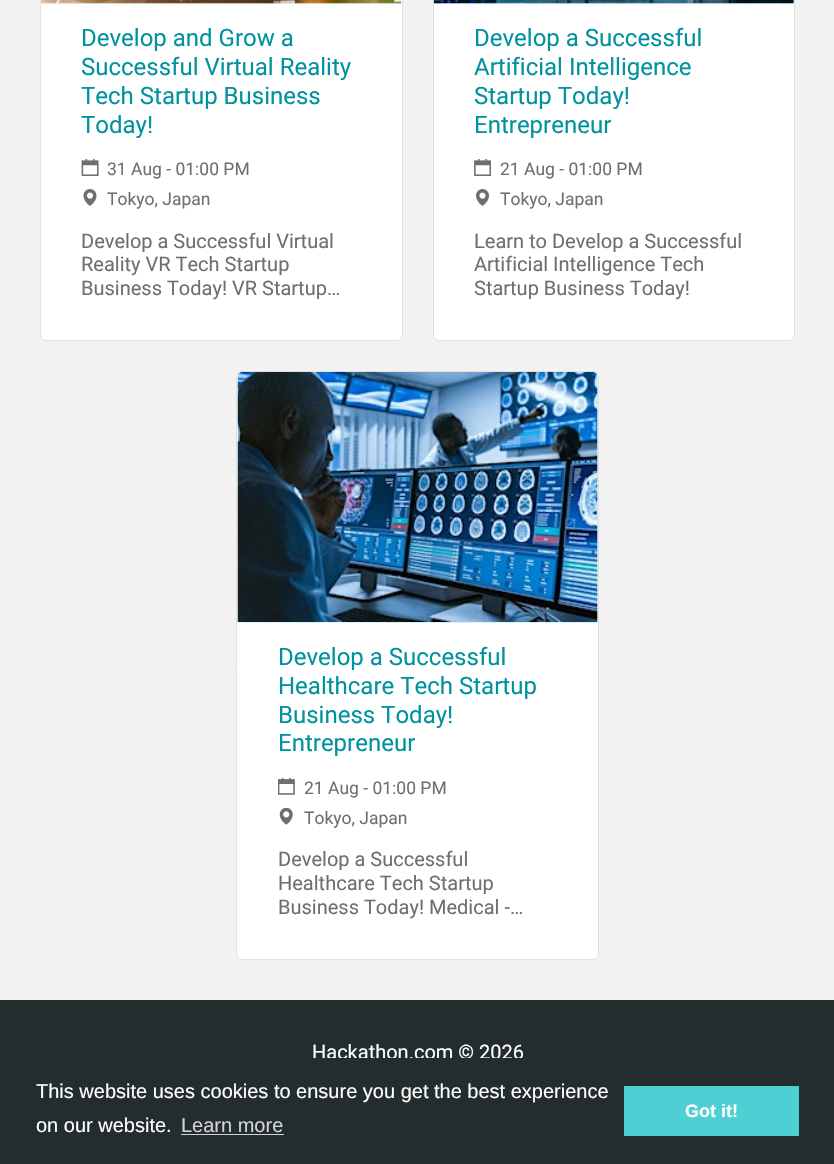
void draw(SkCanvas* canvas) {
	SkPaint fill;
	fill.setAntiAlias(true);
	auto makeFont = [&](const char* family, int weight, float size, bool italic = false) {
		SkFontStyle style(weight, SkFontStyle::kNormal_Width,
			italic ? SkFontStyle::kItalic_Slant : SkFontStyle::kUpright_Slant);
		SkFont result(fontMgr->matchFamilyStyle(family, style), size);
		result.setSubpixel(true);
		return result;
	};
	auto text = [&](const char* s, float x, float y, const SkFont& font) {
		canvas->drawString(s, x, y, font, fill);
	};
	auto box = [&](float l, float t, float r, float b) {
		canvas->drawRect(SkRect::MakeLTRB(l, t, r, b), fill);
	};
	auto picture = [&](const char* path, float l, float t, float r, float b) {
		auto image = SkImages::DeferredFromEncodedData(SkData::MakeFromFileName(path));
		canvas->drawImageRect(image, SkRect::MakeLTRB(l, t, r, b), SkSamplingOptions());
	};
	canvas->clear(0xFFF2F2F2);
	fill.setColor(0xFFFFFFFF);
	canvas->drawRoundRect(SkRect::MakeLTRB(40.5f, -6.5f, 402.5f, 340.5f), 5.5f, 5.5f, fill);
	fill.setStyle(SkPaint::kStroke_Style);
	fill.setStrokeWidth(1);
	fill.setColor(0xFFE2E0E0);
	canvas->drawRoundRect(SkRect::MakeLTRB(40.5f, -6.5f, 402.5f, 340.5f), 5.5f, 5.5f, fill);
	fill.setStyle(SkPaint::kFill_Style);
	fill.setColor(0xFFD6F4F5);
	box(41, 0, 401, 4);
	picture("image0.png", 41, 0, 402, 4);
	picture("image1.png", 81, 159, 99, 176);
	picture("image2.png", 83, 189, 97, 206);
	fill.setColor(0xFFFFFFFF);
	canvas->drawRoundRect(SkRect::MakeLTRB(433.5f, -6.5f, 794.5f, 340.5f), 5.5f, 5.5f, fill);
	fill.setStyle(SkPaint::kStroke_Style);
	fill.setColor(0xFFE2E0E0);
	canvas->drawRoundRect(SkRect::MakeLTRB(433.5f, -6.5f, 794.5f, 340.5f), 5.5f, 5.5f, fill);
	fill.setStyle(SkPaint::kFill_Style);
	fill.setColor(0xFFD6F4F5);
	box(434, 0, 794, 4);
	picture("image3.png", 433, 0, 794, 4);
	picture("image4.png", 474, 159, 491, 176);
	picture("image5.png", 476, 189, 489, 206);
	fill.setColor(0xFFFFFFFF);
	canvas->drawRoundRect(SkRect::MakeLTRB(236.5f, 371.5f, 598.5f, 959.5f), 5.5f, 5.5f, fill);
	fill.setStyle(SkPaint::kStroke_Style);
	fill.setColor(0xFFE2E0E0);
	canvas->drawRoundRect(SkRect::MakeLTRB(236.5f, 371.5f, 598.5f, 959.5f), 5.5f, 5.5f, fill);
	fill.setStyle(SkPaint::kFill_Style);
	fill.setColor(0xFFD6F4F5);
	canvas->drawPath(SkPathBuilder().moveTo(243, 373).lineTo(593, 373).cubicTo(596, 373, 598, 375, 598, 378).lineTo(598, 623).lineTo(238, 623).lineTo(238, 378).cubicTo(238, 375, 240, 373, 243, 373).close().detach(), fill);
	picture("image6.png", 237, 372, 598, 622);
	picture("image7.png", 278, 778, 295, 795);
	picture("image8.png", 279, 808, 293, 825);
	fill.setColor(0xFF242D2D);
	box(0, 1000, 834, 1058);
	auto font1 = makeFont("Roboto", 400, 24);
	fill.setColor(0xFF00939E);
	text("Develop and Grow a", 81, 46, font1);
	text("Successful Virtual Reality", 81, 75, font1);
	text("Tech Startup Business", 81, 104, font1);
	text("Today!", 81, 133, font1);
	auto font2 = makeFont("Roboto", 400, 17.5f);
	fill.setColor(0xFF6D6F71);
	text("31 Aug - 01:00 PM", 107, 175, font2);
	text("Tokyo, Japan", 107, 205, font2);
	auto font3 = makeFont("Roboto", 400, 20);
	text("Develop a Successful Virtual", 81, 248, font3);
	text("Reality VR Tech Startup", 81, 271, font3);
	text("Business Today! VR Startup…", 81, 295, font3);
	fill.setColor(0xFF00939E);
	text("Develop a Successful", 474, 46, font1);
	text("Artificial Intelligence", 474, 75, font1);
	text("Startup Today!", 474, 104, font1);
	text("Entrepreneur", 474, 133, font1);
	fill.setColor(0xFF6D6F71);
	text("21 Aug - 01:00 PM", 500, 175, font2);
	text("Tokyo, Japan", 500, 205, font2);
	text("Learn to Develop a Successful", 474, 248, font3);
	text("Artificial Intelligence Tech", 474, 271, font3);
	text("Startup Business Today!", 474, 295, font3);
	fill.setColor(0xFF00939E);
	text("Develop a Successful", 278, 665, font1);
	text("Healthcare Tech Startup", 278, 694, font1);
	text("Business Today!", 278, 723, font1);
	text("Entrepreneur", 278, 751, font1);
	fill.setColor(0xFF6D6F71);
	text("21 Aug - 01:00 PM", 304, 794, font2);
	text("Tokyo, Japan", 304, 824, font2);
	text("Develop a Successful", 278, 866, font3);
	text("Healthcare Tech Startup", 278, 890, font3);
	text("Business Today! Medical -…", 278, 914, font3);
	fill.setColor(0xFFFFFFFF);
	text("Hackathon.com © 2026", 312, 1059, font3);
	fill.setColor(0xFF242D2D);
	box(0, 1058, 834, 1164);
	auto font4 = makeFont("Liberation Sans", 400, 20);
	fill.setColor(0xFFFFFFFF);
	text("This website uses cookies to ensure you get the best experience", 36, 1098, font4);
	text("on our website.", 36, 1132, font4);
	fill.setColor(0xFFD3D5D5);
	text("Learn more", 181, 1132, font4);
	box(181, 1134, 284, 1135);
	fill.setColor(0xFF4DCFD3);
	box(624, 1086, 799, 1136);
	auto font5 = makeFont("Liberation Sans", 700, 18);
	fill.setColor(0xFFFFFFFF);
	text("Got it!", 685, 1117, font5);
}
